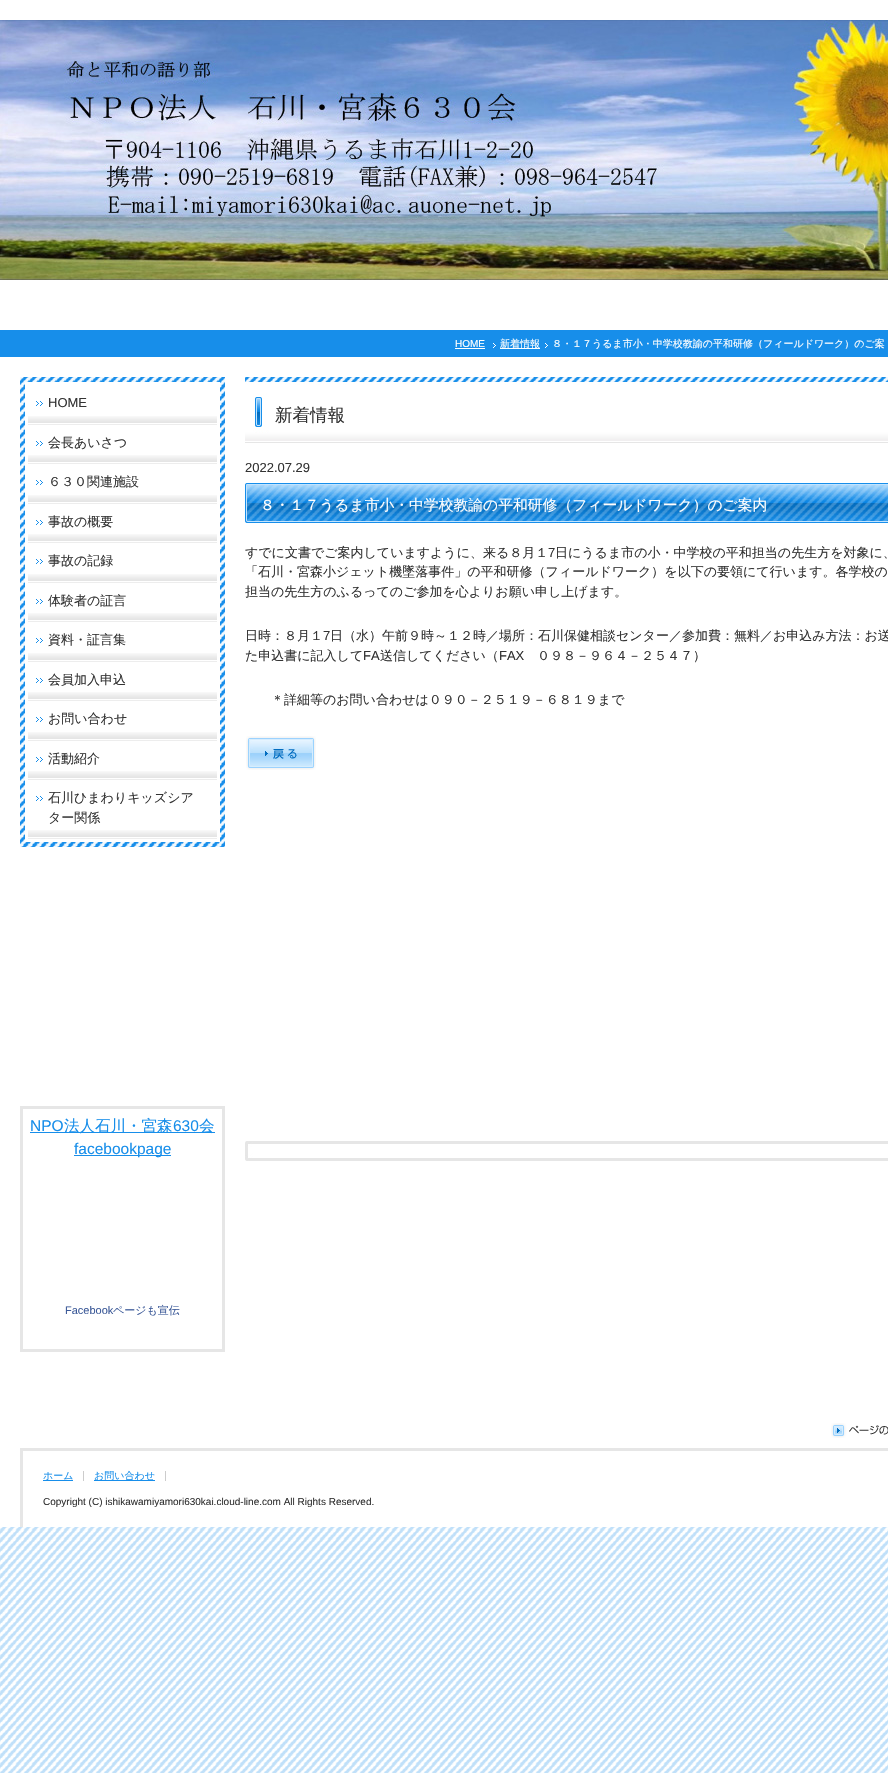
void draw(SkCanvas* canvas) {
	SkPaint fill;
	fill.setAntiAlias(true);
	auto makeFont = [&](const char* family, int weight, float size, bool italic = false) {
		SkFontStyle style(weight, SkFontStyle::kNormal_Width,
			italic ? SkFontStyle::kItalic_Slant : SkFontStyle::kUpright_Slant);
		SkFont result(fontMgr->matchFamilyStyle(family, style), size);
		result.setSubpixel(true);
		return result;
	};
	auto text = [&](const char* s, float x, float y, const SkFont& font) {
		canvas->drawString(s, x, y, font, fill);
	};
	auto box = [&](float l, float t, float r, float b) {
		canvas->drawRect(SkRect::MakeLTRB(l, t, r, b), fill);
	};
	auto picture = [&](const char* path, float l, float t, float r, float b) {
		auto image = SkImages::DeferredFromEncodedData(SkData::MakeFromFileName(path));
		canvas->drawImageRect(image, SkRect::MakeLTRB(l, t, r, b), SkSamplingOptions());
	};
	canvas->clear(0xFFFFFFFF);
	picture("image0.png", 0, 1527, 888, 1773);
	picture("image1.png", 0, 20, 888, 280);
	fill.setColor(0xFF178EEA);
	box(0, 330, 888, 357);
	fill.setColor(0xFFFFFFFF);
	box(455, 348, 485, 349);
	picture("image2.png", 493, 343, 496, 348);
	box(500, 348, 540, 349);
	picture("image2.png", 545, 343, 548, 348);
	picture("image3.png", 20, 377, 225, 847);
	box(25, 382, 220, 842);
	picture("image4.png", 28, 416, 217, 425);
	picture("image5.png", 36, 401, 43, 406);
	picture("image4.png", 28, 455, 217, 464);
	picture("image5.png", 36, 441, 43, 446);
	picture("image4.png", 28, 495, 217, 504);
	picture("image5.png", 36, 480, 43, 485);
	picture("image4.png", 28, 534, 217, 543);
	picture("image5.png", 36, 520, 43, 525);
	picture("image4.png", 28, 574, 217, 583);
	picture("image5.png", 36, 559, 43, 564);
	picture("image4.png", 28, 613, 217, 622);
	picture("image5.png", 36, 599, 43, 604);
	picture("image4.png", 28, 653, 217, 662);
	picture("image5.png", 36, 638, 43, 643);
	picture("image4.png", 28, 692, 217, 701);
	picture("image5.png", 36, 678, 43, 683);
	picture("image4.png", 28, 732, 217, 741);
	picture("image5.png", 36, 717, 43, 722);
	picture("image4.png", 28, 771, 217, 780);
	picture("image5.png", 36, 757, 43, 762);
	picture("image4.png", 28, 830, 217, 839);
	picture("image5.png", 36, 796, 43, 801);
	picture("image6.png", 20, 1109, 225, 1349);
	fill.setColor(0xFFE6E6E6);
	box(20, 1106, 225, 1109);
	box(20, 1349, 225, 1352);
	fill.setColor(0xFF178EEA);
	box(30, 1132, 215, 1133);
	box(74, 1155, 171, 1156);
	picture("image7.png", 245, 377, 888, 443);
	picture("image8.png", 245, 483, 888, 523);
	picture("image9.png", 246, 736, 316, 770);
	picture("image10.png", 245, 1151, 656, 1152);
	picture("image11.png", 245, 1141, 888, 1151);
	picture("image12.png", 245, 1152, 888, 1161);
	picture("image13.png", 831, 1423, 888, 1438);
	fill.setColor(0xFFE6E6E6);
	box(20, 1448, 888, 1451);
	box(20, 1448, 23, 1527);
	fill.setColor(0xFFCCCCCC);
	box(83, 1471, 84, 1481);
	fill.setColor(0xFF178EEA);
	box(43, 1480, 73, 1481);
	fill.setColor(0xFFCCCCCC);
	box(165, 1471, 166, 1481);
	fill.setColor(0xFF178EEA);
	box(94, 1480, 155, 1481);
	auto font1 = makeFont("Liberation Sans", 400, 10);
	fill.setColor(0xFFFFFFFF);
	text("HOME", 455, 347, font1);
	auto font2 = makeFont("WenQuanYi Zen Hei", 500, 10);
	text("新着情報", 500, 347, font2);
	text("８・１７うるま市小・中学校教諭の平和研修（フィールドワーク）のご案", 552, 347, font2);
	auto font3 = makeFont("Liberation Sans", 400, 13);
	fill.setColor(0xFF333333);
	text("HOME", 48, 407, font3);
	auto font4 = makeFont("WenQuanYi Zen Hei", 500, 13);
	text("会長あいさつ", 48, 447, font4);
	text("６３０関連施設", 48, 486, font4);
	text("事故の概要", 48, 526, font4);
	text("事故の記録", 48, 565, font4);
	text("体験者の証言", 48, 605, font4);
	text("資料・証言集", 48, 644, font4);
	text("会員加入申込", 48, 684, font4);
	text("お問い合わせ", 48, 723, font4);
	text("活動紹介", 48, 763, font4);
	text("石川ひまわりキッズシア", 48, 802, font4);
	text("ター関係", 48, 822, font4);
	auto font5 = makeFont("Liberation Sans", 400, 15.5f);
	fill.setColor(0xFF178EEA);
	text("NPO", 30, 1131, font5);
	auto font6 = makeFont("WenQuanYi Zen Hei", 500, 15.5f);
	text("法人石川・宮森", 64, 1131, font6);
	text("630", 173, 1131, font5);
	text("会", 199, 1131, font6);
	text("facebookpage", 74, 1154, font5);
	auto font7 = makeFont("Liberation Sans", 400, 11);
	fill.setColor(0xFF3B5998);
	text("Facebook", 65, 1314, font7);
	auto font8 = makeFont("WenQuanYi Zen Hei", 500, 11);
	text("ページも宣伝", 113, 1314, font8);
	auto font9 = makeFont("WenQuanYi Zen Hei", 500, 17.5f);
	fill.setColor(0xFF333333);
	text("新着情報", 275, 421, font9);
	text("2022.07.29", 245, 472, font3);
	auto font10 = makeFont("WenQuanYi Zen Hei", 500, 14.8f);
	fill.setColor(0xFFFFFFFF);
	text("８・１７うるま市小・中学校教諭の平和研修（フィールドワーク）のご案内", 260, 510, font10);
	fill.setColor(0xFF333333);
	text("すでに文書でご案内していますように、来る８月１", 245, 557, font4);
	text("7", 548, 557, font3);
	text("日にうるま市の小・中学校の平和担当の先生方を対象に、", 555, 557, font4);
	text("「石川・宮森小ジェット機墜落事件」の平和研修（フィールドワーク）を以下の要領にて行います。各学校の", 245, 576, font4);
	text("担当の先生方のふるってのご参加を心よりお願い申し上げます。", 245, 596, font4);
	text("日時：８月１", 245, 640, font4);
	text("7", 323, 640, font3);
	text("日（水）午前９時～１２時／場所：石川保健相談センター／参加費：無料／お申込み方法：お送", 330, 640, font4);
	text("た申込書に記入して", 245, 660, font4);
	text("FA", 363, 660, font3);
	text("送信してください（", 380, 660, font4);
	text("FAX", 499, 660, font3);
	text("０９８－９６４－２５４７）", 537, 660, font4);
	text("＊詳細等のお問い合わせは０９０－２５１９－６８１９まで", 271, 704, font4);
	fill.setColor(0xFF178EEA);
	text("ホーム", 43, 1479, font2);
	text("お問い合わせ", 94, 1479, font2);
	fill.setColor(0xFF333333);
	text("Copyright (C) ishikawamiyamori630kai.cloud-line.com All Rights Reserved.", 43, 1505, font1);
}
